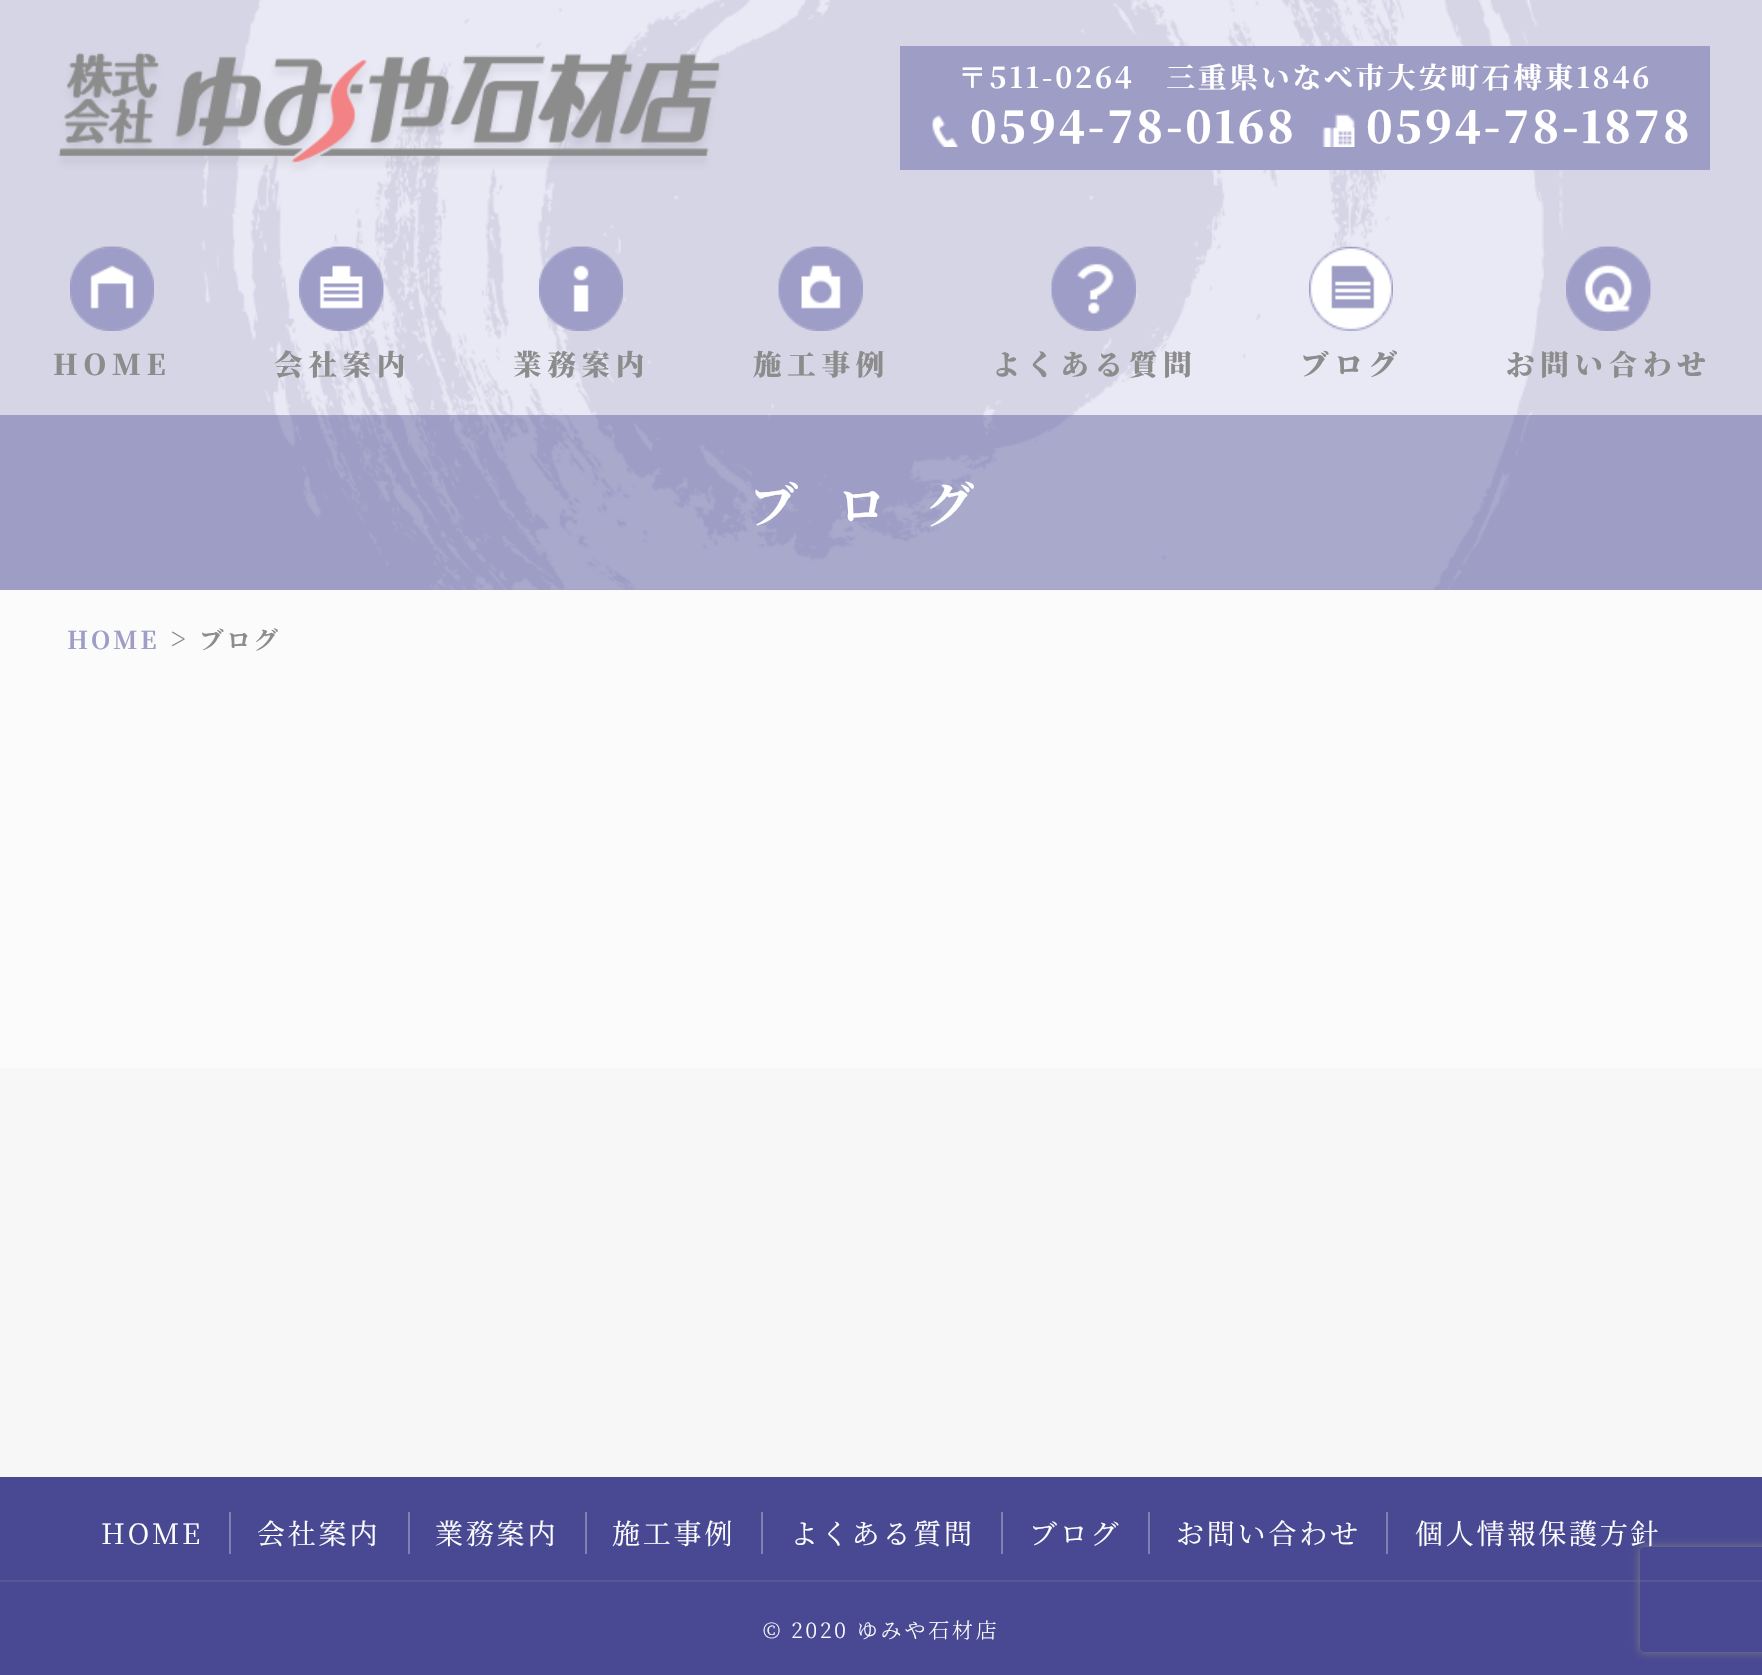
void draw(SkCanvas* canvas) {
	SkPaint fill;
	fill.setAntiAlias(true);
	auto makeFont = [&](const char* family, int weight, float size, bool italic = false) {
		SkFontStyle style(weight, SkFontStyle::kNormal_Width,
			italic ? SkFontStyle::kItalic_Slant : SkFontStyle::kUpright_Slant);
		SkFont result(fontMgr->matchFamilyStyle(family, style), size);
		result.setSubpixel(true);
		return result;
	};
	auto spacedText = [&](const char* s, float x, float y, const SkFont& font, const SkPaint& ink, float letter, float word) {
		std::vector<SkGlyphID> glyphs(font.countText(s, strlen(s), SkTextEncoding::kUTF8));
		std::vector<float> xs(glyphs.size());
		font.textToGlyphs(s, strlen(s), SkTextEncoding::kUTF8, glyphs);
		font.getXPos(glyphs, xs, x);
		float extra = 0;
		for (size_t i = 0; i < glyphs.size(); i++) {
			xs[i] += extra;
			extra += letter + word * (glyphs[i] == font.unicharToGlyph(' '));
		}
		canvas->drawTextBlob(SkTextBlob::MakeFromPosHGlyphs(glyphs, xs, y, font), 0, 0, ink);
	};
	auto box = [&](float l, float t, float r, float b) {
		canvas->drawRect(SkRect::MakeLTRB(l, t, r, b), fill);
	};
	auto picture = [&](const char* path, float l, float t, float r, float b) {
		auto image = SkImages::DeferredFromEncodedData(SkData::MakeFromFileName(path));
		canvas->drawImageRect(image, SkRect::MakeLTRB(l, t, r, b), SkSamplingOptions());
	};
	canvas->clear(0xFFF7F7F7);
	fill.setColor(0xFFFBFBFB);
	box(0, 590, 1762, 1068);
	fill.setColor(0xFFD5D5E6);
	box(0, 0, 1762, 415);
	picture("image0.png", 201, 0, 1563, 415);
	picture("image1.png", 57, 52, 722, 172);
	fill.setColor(0xFF9D9DC5);
	box(900, 46, 1710, 170);
	picture("image2.png", 917, 105, 959, 147);
	picture("image3.png", 1313, 105, 1355, 147);
	picture("image4.png", 70, 246, 154, 331);
	picture("image5.png", 70, 246, 154, 331);
	picture("image6.png", 299, 246, 384, 331);
	picture("image7.png", 299, 246, 384, 331);
	picture("image8.png", 539, 246, 623, 331);
	picture("image9.png", 539, 246, 623, 331);
	picture("image10.png", 778, 246, 863, 331);
	picture("image11.png", 778, 246, 863, 331);
	picture("image12.png", 1051, 246, 1136, 331);
	picture("image13.png", 1051, 246, 1136, 331);
	picture("image14.png", 1309, 246, 1393, 331);
	picture("image15.png", 1566, 246, 1651, 331);
	picture("image16.png", 1566, 246, 1651, 331);
	box(0, 415, 1762, 590);
	picture("image17.png", 277, 415, 1530, 590);
	fill.setColor(0xFF494993);
	box(0, 1477, 1762, 1675);
	fill.setColor(0xFF585693);
	box(0, 1580, 1762, 1582);
	fill.setColor(0xFF8080B3);
	box(229, 1512, 231, 1554);
	box(408, 1512, 410, 1554);
	box(585, 1512, 587, 1554);
	box(761, 1512, 763, 1554);
	box(1001, 1512, 1003, 1554);
	box(1148, 1512, 1150, 1554);
	box(1386, 1512, 1388, 1554);
	canvas->save();
	canvas->clipPath(SkPathBuilder(SkPathFillType::kEvenOdd).moveTo(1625, 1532).lineTo(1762, 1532).lineTo(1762, 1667).lineTo(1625, 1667).close().moveTo(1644, 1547).lineTo(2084, 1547).cubicTo(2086, 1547, 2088, 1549, 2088, 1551).lineTo(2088, 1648).cubicTo(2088, 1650, 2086, 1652, 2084, 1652).lineTo(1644, 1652).cubicTo(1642, 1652, 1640, 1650, 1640, 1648).lineTo(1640, 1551).cubicTo(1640, 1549, 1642, 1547, 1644, 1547).close().detach(), true);
	fill.setColor(0xFF808080);
	fill.setMaskFilter(SkMaskFilter::MakeBlur(kNormal_SkBlurStyle, 4.5f));
	canvas->drawRoundRect(SkRect::MakeLTRB(1640, 1547, 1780, 1652), 4, 4, fill);
	fill.setMaskFilter(nullptr);
	canvas->restore();
	auto font1 = makeFont("Noto Serif JP", 700, 28.75f);
	fill.setColor(0xFFFFFFFF);
	spacedText("〒511-0264　三重県いなべ市大安町石榑東1846", 958, 88, font1, fill, 2.8f, 0);
	auto font2 = makeFont("Noto Serif JP", 900, 43.5f);
	spacedText("0594-78-0168", 970, 143, font2, fill, 2.8f, 0);
	spacedText("0594-78-1878", 1366, 143, font2, fill, 2.8f, 0);
	auto font3 = makeFont("Noto Serif JP", 900, 28.5f);
	fill.setColor(0xFF8C8C8C);
	spacedText("HOME", 53, 375, font3, fill, 5.75f, 0);
	spacedText("会社案内", 274, 375, font3, fill, 5.75f, 0);
	spacedText("業務案内", 513, 375, font3, fill, 5.75f, 0);
	spacedText("施工事例", 753, 375, font3, fill, 5.75f, 0);
	spacedText("よくある質問", 992, 375, font3, fill, 5.75f, 0);
	spacedText("ブログ", 1300, 375, font3, fill, 5.75f, 0);
	spacedText("お問い合わせ", 1506, 375, font3, fill, 5.75f, 0);
	auto font4 = makeFont("Noto Serif JP", 700, 49);
	fill.setColor(0xFFFFFFFF);
	spacedText("ブログ", 749, 523, font4, fill, 39, 0);
	auto font5 = makeFont("Noto Serif JP", 700, 24.5f);
	fill.setColor(0xFF9D9DC5);
	spacedText("HOME", 67, 649, font5, fill, 2.8f, 0);
	auto font6 = makeFont("Noto Serif JP", 400, 28);
	fill.setColor(0xFF8C8C8C);
	spacedText(">", 170, 649, font6, fill, 2.8f, 0);
	spacedText("ブログ", 199, 649, font5, fill, 2.8f, 0);
	fill.setColor(0xFFFFFFFF);
	spacedText("HOME", 101, 1544, font6, fill, 2.8f, 0);
	spacedText("会社案内", 257, 1544, font6, fill, 2.8f, 0);
	spacedText("業務案内", 435, 1544, font6, fill, 2.8f, 0);
	spacedText("施工事例", 612, 1544, font6, fill, 2.8f, 0);
	spacedText("よくある質問", 790, 1544, font6, fill, 2.8f, 0);
	spacedText("ブログ", 1029, 1544, font6, fill, 2.8f, 0);
	spacedText("お問い合わせ", 1176, 1544, font6, fill, 2.8f, 0);
	spacedText("個人情報保護方針", 1415, 1544, font6, fill, 2.8f, 0);
	auto font7 = makeFont("Noto Serif JP", 300, 21);
	spacedText("© 2020 ゆみや石材店", 763, 1638, font7, fill, 2.8f, 0);
}
